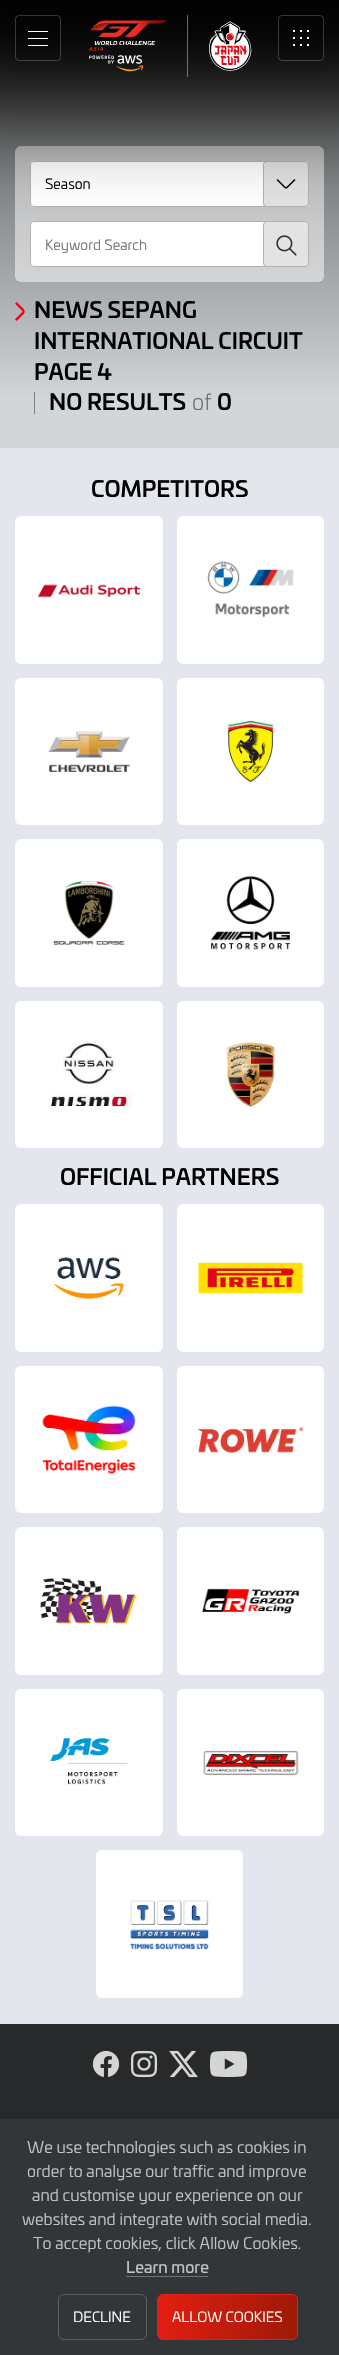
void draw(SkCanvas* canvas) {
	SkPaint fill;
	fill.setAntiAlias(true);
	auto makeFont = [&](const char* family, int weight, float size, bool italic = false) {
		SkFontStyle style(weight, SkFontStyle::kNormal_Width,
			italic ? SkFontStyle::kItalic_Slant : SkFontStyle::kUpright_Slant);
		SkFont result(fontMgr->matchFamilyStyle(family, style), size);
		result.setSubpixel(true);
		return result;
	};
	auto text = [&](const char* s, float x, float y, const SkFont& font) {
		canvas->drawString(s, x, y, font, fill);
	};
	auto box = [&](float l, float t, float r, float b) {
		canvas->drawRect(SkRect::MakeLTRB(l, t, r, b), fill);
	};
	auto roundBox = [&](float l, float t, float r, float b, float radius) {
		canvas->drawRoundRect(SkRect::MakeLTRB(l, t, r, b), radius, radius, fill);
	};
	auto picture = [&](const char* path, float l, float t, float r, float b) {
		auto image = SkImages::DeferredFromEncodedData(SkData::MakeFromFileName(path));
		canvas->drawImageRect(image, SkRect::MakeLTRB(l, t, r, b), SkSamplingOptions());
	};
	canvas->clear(0xFFE3E6EC);
	fill.setColor(0xFFD2D6D9);
	box(0, 400, 339, 448);
	fill.setColor(0xFF7E8082);
	box(34, 392, 35, 414);
	{
		const SkColor colors[] = {0xFFD2D6D9, 0xFF3E3F40};
		const float stops[] = {0, 1};
		const SkPoint ends[] = {{170, 400}, {170, 0}};
		fill.setShader(SkGradientShader::MakeLinear(ends, colors, stops, 2, SkTileMode::kClamp));
		fill.setAlpha(255);
	}
	box(0, 0, 339, 400);
	fill.setShader(nullptr);
	fill.setColor(0x80FFFFFF);
	roundBox(15, 146, 324, 282, 6);
	fill.setColor(0xFFFFFFFF);
	roundBox(30, 161, 309, 207, 4);
	picture("image1.png", 263, 161, 309, 207);
	fill.setStyle(SkPaint::kStroke_Style);
	fill.setStrokeWidth(1);
	fill.setColor(0xFFB2B2B2);
	canvas->drawRoundRect(SkRect::MakeLTRB(30.5f, 161.5f, 308.5f, 206.5f), 3.5f, 3.5f, fill);
	fill.setStyle(SkPaint::kFill_Style);
	fill.setColor(0xFFFFFFFF);
	canvas->drawRoundRect(SkRect::MakeLTRB(30.5f, 221.5f, 308.5f, 266.5f), 3.5f, 3.5f, fill);
	fill.setStyle(SkPaint::kStroke_Style);
	fill.setColor(0xFFB2B2B2);
	canvas->drawRoundRect(SkRect::MakeLTRB(30.5f, 221.5f, 308.5f, 266.5f), 3.5f, 3.5f, fill);
	fill.setStyle(SkPaint::kFill_Style);
	fill.setColor(0xFFE3E3E3);
	canvas->drawRoundRect(SkRect::MakeLTRB(263.5f, 221.5f, 308.5f, 266.5f), 3.5f, 3.5f, fill);
	fill.setStyle(SkPaint::kStroke_Style);
	fill.setColor(0xFFB2B2B2);
	canvas->drawRoundRect(SkRect::MakeLTRB(263.5f, 221.5f, 308.5f, 266.5f), 3.5f, 3.5f, fill);
	picture("image2.png", 276, 235, 297, 256);
	fill.setStyle(SkPaint::kFill_Style);
	fill.setColor(0xFF000000);
	fill.setMaskFilter(SkMaskFilter::MakeBlur(kNormal_SkBlurStyle, 50));
	canvas->drawRect(SkRect::MakeLTRB(-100, -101, 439, 100), fill);
	fill.setMaskFilter(nullptr);
	fill.setColor(0x33000000);
	roundBox(15, 15, 61, 61, 4);
	fill.setStyle(SkPaint::kStroke_Style);
	fill.setColor(0x33FFFFFF);
	canvas->drawRoundRect(SkRect::MakeLTRB(15.5f, 15.5f, 60.5f, 60.5f), 3.5f, 3.5f, fill);
	fill.setStyle(SkPaint::kFill_Style);
	fill.setColor(0xFFFFFFFF);
	box(28, 31, 48, 32);
	box(28, 38, 48, 39);
	box(28, 45, 48, 46);
	picture("image0.png", 89, 15, 252, 77);
	fill.setColor(0x33000000);
	roundBox(278, 15, 324, 61, 4);
	fill.setStyle(SkPaint::kStroke_Style);
	fill.setColor(0x33FFFFFF);
	canvas->drawRoundRect(SkRect::MakeLTRB(278.5f, 15.5f, 323.5f, 60.5f), 3.5f, 3.5f, fill);
	fill.setStyle(SkPaint::kFill_Style);
	fill.setColor(0xFFFFFFFF);
	box(293, 30, 295, 32);
	box(300, 30, 302, 32);
	box(307, 30, 309, 32);
	box(293, 37, 295, 39);
	box(300, 37, 302, 39);
	box(307, 37, 309, 39);
	box(293, 44, 295, 46);
	box(300, 44, 302, 46);
	box(307, 44, 309, 46);
	{
		const SkColor colors[] = {0xFF7E8082, 0xFF252626};
		const float stops[] = {0, 1};
		const SkPoint ends[] = {{170, 400}, {170, 0}};
		fill.setShader(SkGradientShader::MakeLinear(ends, colors, stops, 2, SkTileMode::kClamp));
		fill.setAlpha(255);
	}
	box(34, 392, 35, 400);
	picture("image3.png", 15, 302, 25, 321);
	fill.setShader(nullptr);
	fill.setColor(0xFFFFFFFF);
	roundBox(15, 516, 163, 664, 6);
	picture("image4.png", 37, 584, 140, 598);
	roundBox(177, 516, 324, 664, 6);
	picture("image5.png", 207, 561, 294, 618);
	roundBox(15, 678, 163, 825, 6);
	picture("image6.png", 48, 731, 130, 772);
	roundBox(177, 678, 324, 825, 6);
	picture("image7.png", 227, 720, 274, 783);
	roundBox(15, 839, 163, 987, 6);
	picture("image8.png", 53, 881, 125, 945);
	roundBox(177, 839, 324, 987, 6);
	picture("image9.png", 211, 876, 290, 950);
	roundBox(15, 1001, 163, 1148, 6);
	picture("image10.png", 50, 1041, 133, 1109);
	roundBox(177, 1001, 324, 1148, 6);
	picture("image11.png", 226, 1042, 275, 1107);
	roundBox(15, 1204, 163, 1352, 6);
	picture("image12.png", 54, 1257, 124, 1299);
	roundBox(177, 1204, 324, 1352, 6);
	picture("image13.png", 198, 1262, 303, 1294);
	roundBox(15, 1366, 163, 1513, 6);
	picture("image14.png", 42, 1405, 136, 1474);
	roundBox(177, 1366, 324, 1513, 6);
	picture("image15.png", 197, 1427, 304, 1453);
	roundBox(15, 1527, 163, 1675, 6);
	picture("image16.png", 40, 1578, 138, 1624);
	roundBox(177, 1527, 324, 1675, 6);
	picture("image17.png", 202, 1588, 300, 1614);
	roundBox(15, 1689, 163, 1836, 6);
	picture("image18.png", 50, 1737, 128, 1785);
	roundBox(177, 1689, 324, 1836, 6);
	picture("image19.png", 203, 1750, 299, 1776);
	roundBox(96, 1850, 243, 1998, 6);
	picture("image20.png", 130, 1900, 209, 1950);
	fill.setColor(0xFF27292A);
	box(0, 2024, 339, 2119);
	picture("image21.png", 92, 2050, 120, 2077);
	picture("image22.png", 130, 2050, 158, 2078);
	picture("image23.png", 169, 2050, 198, 2078);
	picture("image24.png", 209, 2051, 248, 2077);
	fill.setColor(0xFF333638);
	box(0, 2119, 339, 2355);
	fill.setColor(0xFF707274);
	box(126, 2276, 208, 2277);
	fill.setStyle(SkPaint::kStroke_Style);
	fill.setColor(0xFF5C5E60);
	canvas->drawRoundRect(SkRect::MakeLTRB(58.5f, 2294.5f, 146.5f, 2339.5f), 5.5f, 5.5f, fill);
	fill.setStyle(SkPaint::kFill_Style);
	{
		const SkColor colors[] = {0xFFE31E12, 0xFF9D1A07};
		const float stops[] = {0, 1};
		const SkPoint ends[] = {{157, 2317}, {298, 2317}};
		fill.setShader(SkGradientShader::MakeLinear(ends, colors, stops, 2, SkTileMode::kClamp));
		fill.setAlpha(255);
	}
	canvas->drawRoundRect(SkRect::MakeLTRB(157.5f, 2294.5f, 297.5f, 2339.5f), 5.5f, 5.5f, fill);
	fill.setStyle(SkPaint::kStroke_Style);
	fill.setShader(nullptr);
	fill.setColor(0xFFE31E12);
	canvas->drawRoundRect(SkRect::MakeLTRB(157.5f, 2294.5f, 297.5f, 2339.5f), 5.5f, 5.5f, fill);
	auto font1 = makeFont("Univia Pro", 400, 14);
	fill.setStyle(SkPaint::kFill_Style);
	fill.setColor(0xFF000000);
	text("Season", 45, 189, font1);
	fill.setColor(0xFF757575);
	text("Keyword Search", 45, 250, font1);
	auto font2 = makeFont("Univia Pro", 500, 22);
	fill.setColor(0xFF000000);
	text("NEWS SEPANG", 34, 318, font2);
	text("INTERNATIONAL CIRCUIT", 34, 349, font2);
	text("PAGE 4", 34, 380, font2);
	text("NO RESULTS", 49, 410, font2);
	auto font3 = makeFont("Univia Pro", 300, 22);
	fill.setColor(0xFF696B6C);
	text("of", 192, 410, font3);
	fill.setColor(0xFF000000);
	text("0", 217, 410, font2);
	text("COMPETITORS", 91, 497, font2);
	text("OFFICIAL PARTNERS", 60, 1185, font2);
	auto font4 = makeFont("Univia Pro", 400, 16);
	fill.setColor(0xFFC2C3C3);
	text("We use technologies such as cookies in", 27, 2153, font4);
	text("order to analyse our traffic and improve", 27, 2177, font4);
	text("and customise your experience on our", 32, 2201, font4);
	text("websites and integrate with social media.", 22, 2225, font4);
	text("To accept cookies, click Allow Cookies.", 33, 2249, font4);
	auto font5 = makeFont("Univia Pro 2", 400, 16);
	text("Learn more", 126, 2273, font5);
	fill.setColor(0xFFFFFFFF);
	text("DECLINE", 73, 2322, font1);
	text("ALLOW COOKIES", 172, 2322, font1);
}
